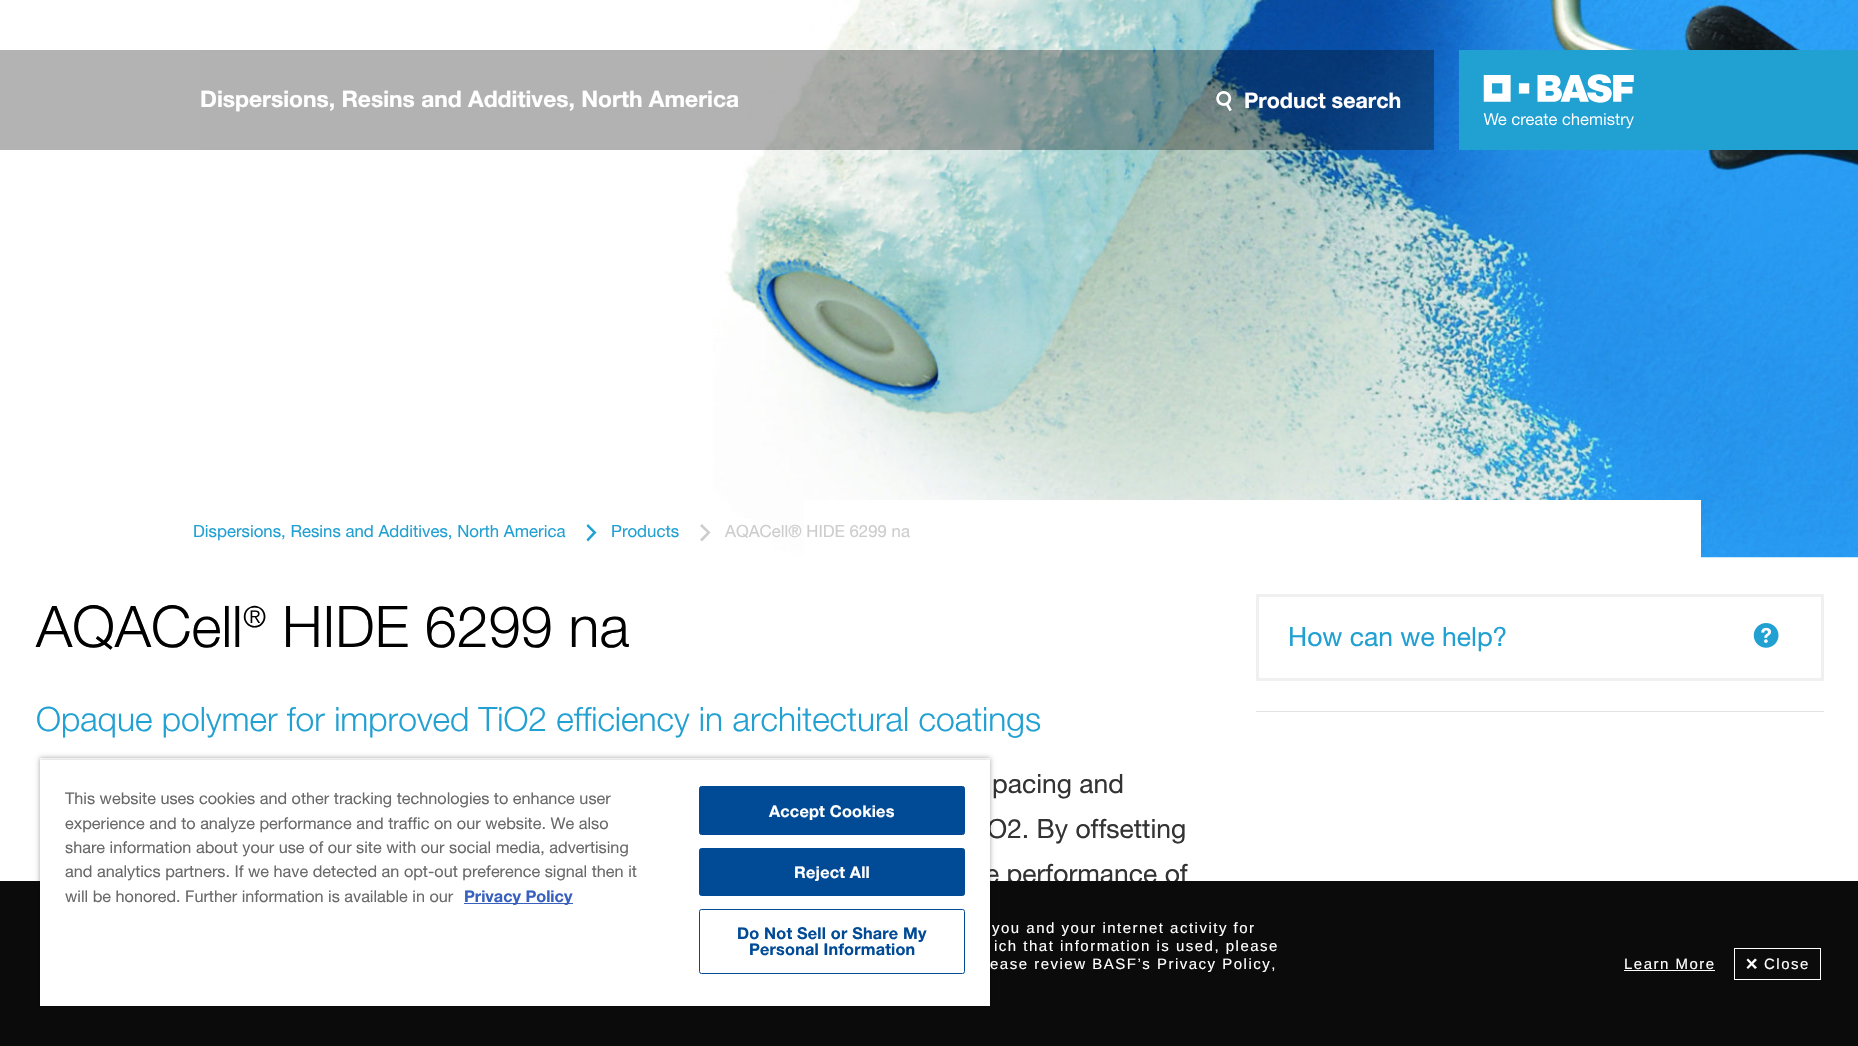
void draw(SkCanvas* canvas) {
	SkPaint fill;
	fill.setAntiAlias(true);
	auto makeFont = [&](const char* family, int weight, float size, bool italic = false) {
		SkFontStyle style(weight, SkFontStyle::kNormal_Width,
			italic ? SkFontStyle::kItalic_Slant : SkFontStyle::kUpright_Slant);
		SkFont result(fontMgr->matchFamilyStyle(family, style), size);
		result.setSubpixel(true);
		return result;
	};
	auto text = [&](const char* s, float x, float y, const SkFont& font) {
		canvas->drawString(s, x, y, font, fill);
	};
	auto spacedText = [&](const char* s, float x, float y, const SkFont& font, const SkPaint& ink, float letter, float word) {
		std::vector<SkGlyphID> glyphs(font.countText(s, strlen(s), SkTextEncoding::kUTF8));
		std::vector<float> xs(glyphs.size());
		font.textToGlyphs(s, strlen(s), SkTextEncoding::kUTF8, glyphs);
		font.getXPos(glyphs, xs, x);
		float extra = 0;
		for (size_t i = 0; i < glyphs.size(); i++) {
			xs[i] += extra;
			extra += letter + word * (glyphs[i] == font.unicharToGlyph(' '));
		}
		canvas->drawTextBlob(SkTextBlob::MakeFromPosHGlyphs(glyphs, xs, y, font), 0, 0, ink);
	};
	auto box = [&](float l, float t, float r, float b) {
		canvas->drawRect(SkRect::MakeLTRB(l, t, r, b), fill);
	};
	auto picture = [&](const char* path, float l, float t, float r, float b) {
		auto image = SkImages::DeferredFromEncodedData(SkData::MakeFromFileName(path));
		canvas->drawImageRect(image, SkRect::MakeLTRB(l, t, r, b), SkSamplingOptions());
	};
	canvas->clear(0xFFFFFFFF);
	picture("image0.png", 713, 0, 1858, 558);
	fill.setColor(0xFFB3B3B3);
	box(0, 50, 200, 150);
	fill.setColor(0x4D000000);
	box(200, 50, 1434, 150);
	picture("image1.png", 1216, 91, 1232, 112);
	fill.setColor(0xFF21A0D2);
	box(1459, 50, 1858, 150);
	picture("image2.png", 1483, 74, 1634, 129);
	fill.setColor(0xFFFFFFFF);
	box(804, 500, 1701, 558);
	fill.setColor(0xFF21A0D2);
	canvas->drawPath(SkPathBuilder().moveTo(596.5f, 532.5f).lineTo(588, 541.5f).lineTo(586.5f, 539.5f).lineTo(593, 532.5f).lineTo(586.5f, 526).lineTo(588, 524).close().detach(), fill);
	fill.setColor(0xFFCDCDCD);
	canvas->drawPath(SkPathBuilder().moveTo(710.5f, 532.5f).lineTo(702, 541.5f).lineTo(700, 539.5f).lineTo(707, 532.5f).lineTo(700, 526).lineTo(702, 524).close().detach(), fill);
	fill.setColor(0xFFE3E3E3);
	box(1256, 711, 1824, 712);
	fill.setStyle(SkPaint::kStroke_Style);
	fill.setStrokeWidth(3);
	fill.setColor(0xFFF0F0F0);
	canvas->drawRect(SkRect::MakeLTRB(1257.5f, 595.5f, 1822.5f, 679.5f), fill);
	picture("image3.png", 1753, 623, 1779, 648);
	auto font1 = makeFont("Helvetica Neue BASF", 700, 22.8f);
	fill.setStyle(SkPaint::kFill_Style);
	fill.setColor(0xFFFFFFFF);
	text("Dispersions, Resins and Additives, North America", 200, 107, font1);
	auto font2 = makeFont("Helvetica Neue BASF", 700, 21.5f);
	text("Product search", 1244, 108, font2);
	auto font3 = makeFont("Helvetica Neue BASF", 400, 16.8f);
	fill.setColor(0xFF21A0D2);
	text("Dispersions, Resins and Additives, North America", 193, 537, font3);
	text("Products", 611, 537, font3);
	fill.setColor(0xFFCDCDCD);
	text("AQACell® HIDE 6299 na", 725, 537, font3);
	auto font4 = makeFont("Helvetica Neue BASF", 300, 57.5f);
	fill.setColor(0xFF000000);
	text("AQACell", 36, 647, font4);
	auto font5 = makeFont("Helvetica Neue BASF", 300, 29);
	text("®", 243, 627, font5);
	text("HIDE 6299 na", 282, 647, font4);
	auto font6 = makeFont("Helvetica Neue BASF", 300, 33.6f);
	fill.setColor(0xFF21A0D2);
	text("Opaque polymer for improved TiO2 efficiency in architectural coatings", 36, 731, font6);
	auto font7 = makeFont("Helvetica Neue BASF", 400, 26.5f);
	fill.setColor(0xFF333333);
	text("pacing and", 992, 793, font7);
	text("O2. By offsetting", 987, 838, font7);
	text("e performance of", 985, 883, font7);
	fill.setColor(0xFF21A0D2);
	text("How can we help?", 1288, 646, font7);
	fill.setColor(0xFF0B0B0B);
	box(0, 881, 1858, 1046);
	canvas->save();
	canvas->clipRect(SkRect::MakeLTRB(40, 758, 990, 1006));
	fill.setColor(0x33000000);
	fill.setMaskFilter(SkMaskFilter::MakeBlur(kNormal_SkBlurStyle, 2.5f));
	canvas->drawRect(SkRect::MakeLTRB(40, 760, 990, 1006), fill);
	fill.setMaskFilter(nullptr);
	canvas->restore();
	canvas->save();
	canvas->clipPath(SkPathBuilder(SkPathFillType::kEvenOdd).moveTo(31, 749).lineTo(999, 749).lineTo(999, 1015).lineTo(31, 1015).close().moveTo(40, 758).lineTo(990, 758).lineTo(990, 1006).lineTo(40, 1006).close().detach(), true);
	fill.setColor(0x59000000);
	fill.setMaskFilter(SkMaskFilter::MakeBlur(kNormal_SkBlurStyle, 2.5f));
	canvas->drawRect(SkRect::MakeLTRB(40, 758, 990, 1006), fill);
	fill.setMaskFilter(nullptr);
	canvas->restore();
	fill.setColor(0xFFFFFFFF);
	box(40, 760, 990, 1006);
	fill.setStyle(SkPaint::kStroke_Style);
	fill.setStrokeWidth(1);
	fill.setColor(0xFF004A96);
	canvas->drawRoundRect(SkRect::MakeLTRB(699.5f, 909.5f, 964.5f, 973.5f), 2, 2, fill);
	auto font8 = makeFont("Helvetica Neue BASF", 700, 16.25f);
	fill.setStyle(SkPaint::kFill_Style);
	spacedText("Personal Information", 749, 955, font8, fill, 0.2f, 0);
	spacedText("Do Not Sell or Share My", 737, 939, font8, fill, 0.2f, 0);
	canvas->drawRoundRect(SkRect::MakeLTRB(699.5f, 848.5f, 964.5f, 895.5f), 2, 2, fill);
	fill.setStyle(SkPaint::kStroke_Style);
	canvas->drawRoundRect(SkRect::MakeLTRB(699.5f, 848.5f, 964.5f, 895.5f), 2, 2, fill);
	fill.setStyle(SkPaint::kFill_Style);
	fill.setColor(0xFFFFFFFF);
	spacedText("Reject All", 794, 878, font8, fill, 0.2f, 0);
	fill.setColor(0xFF004A96);
	canvas->drawRoundRect(SkRect::MakeLTRB(699.5f, 786.5f, 964.5f, 834.5f), 2, 2, fill);
	fill.setStyle(SkPaint::kStroke_Style);
	canvas->drawRoundRect(SkRect::MakeLTRB(699.5f, 786.5f, 964.5f, 834.5f), 2, 2, fill);
	fill.setStyle(SkPaint::kFill_Style);
	fill.setColor(0xFFFFFFFF);
	spacedText("Accept Cookies", 769, 817, font8, fill, 0.2f, 0);
	fill.setColor(0xFF3860BE);
	box(464, 903, 573, 904);
	text("Privacy Policy", 464, 902, font8);
	auto font9 = makeFont("Helvetica Neue BASF", 400, 16.25f);
	fill.setColor(0xFF696969);
	text("will be honored. Further information is available in our", 65, 902, font9);
	text("and analytics partners. If we have detected an opt-out preference signal then it", 65, 877, font9);
	text("share information about your use of our site with our social media, advertising", 65, 853, font9);
	text("experience and to analyze performance and traffic on our website. We also", 65, 829, font9);
	text("This website uses cookies and other tracking technologies to enhance user", 65, 804, font9);
	auto font10 = makeFont("Liberation Sans", 400, 15);
	fill.setColor(0xFFFFFFFF);
	spacedText("you and your internet activity for", 992, 933, font10, fill, 1.5f, 0);
	spacedText("ich that information is used, please", 994, 951, font10, fill, 1.5f, 0);
	spacedText("ease review BASF’s Privacy Policy,", 990, 969, font10, fill, 1.5f, 0);
	spacedText("Learn More", 1624, 969, font10, fill, 1.5f, 0);
	box(1624, 970, 1715, 971);
	fill.setStyle(SkPaint::kStroke_Style);
	canvas->drawRect(SkRect::MakeLTRB(1734.5f, 948.5f, 1820.5f, 979.5f), fill);
	fill.setStyle(SkPaint::kFill_Style);
	canvas->drawPath(SkPathBuilder().moveTo(1746.5f, 967.5f).lineTo(1755, 958.5f).lineTo(1757, 960).lineTo(1748, 969).close().detach(), fill);
	canvas->drawPath(SkPathBuilder().moveTo(1748, 958.5f).lineTo(1757, 967.5f).lineTo(1755, 969).lineTo(1746.5f, 960).close().detach(), fill);
	spacedText("Close", 1764, 969, font10, fill, 1.5f, 0);
}
